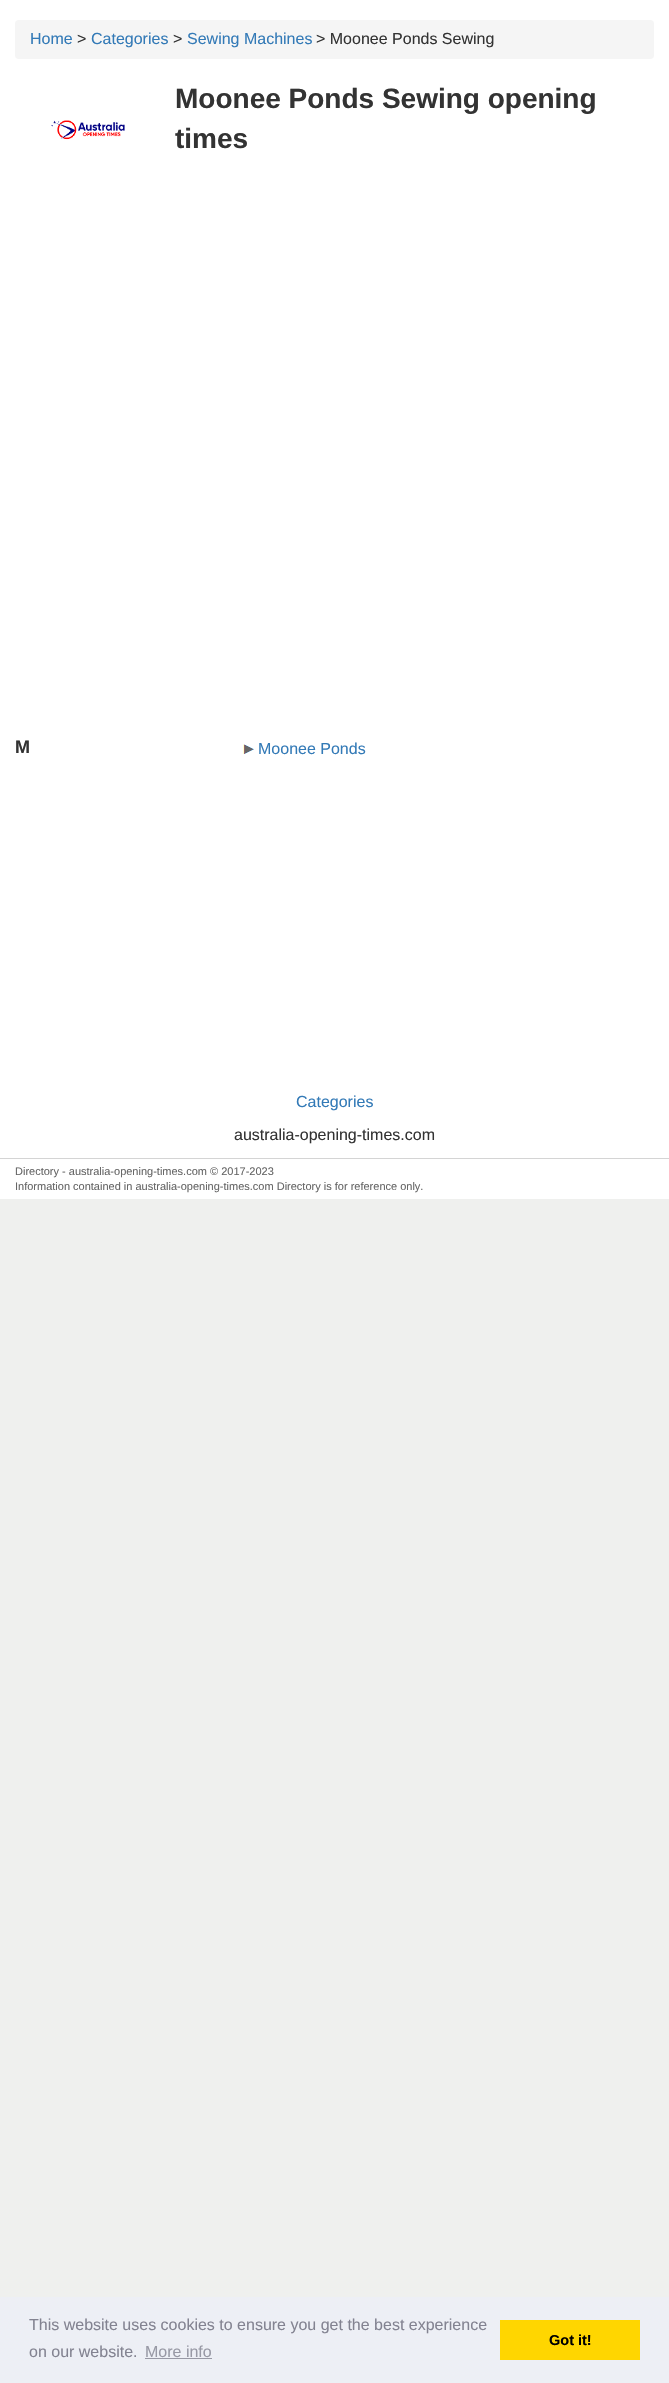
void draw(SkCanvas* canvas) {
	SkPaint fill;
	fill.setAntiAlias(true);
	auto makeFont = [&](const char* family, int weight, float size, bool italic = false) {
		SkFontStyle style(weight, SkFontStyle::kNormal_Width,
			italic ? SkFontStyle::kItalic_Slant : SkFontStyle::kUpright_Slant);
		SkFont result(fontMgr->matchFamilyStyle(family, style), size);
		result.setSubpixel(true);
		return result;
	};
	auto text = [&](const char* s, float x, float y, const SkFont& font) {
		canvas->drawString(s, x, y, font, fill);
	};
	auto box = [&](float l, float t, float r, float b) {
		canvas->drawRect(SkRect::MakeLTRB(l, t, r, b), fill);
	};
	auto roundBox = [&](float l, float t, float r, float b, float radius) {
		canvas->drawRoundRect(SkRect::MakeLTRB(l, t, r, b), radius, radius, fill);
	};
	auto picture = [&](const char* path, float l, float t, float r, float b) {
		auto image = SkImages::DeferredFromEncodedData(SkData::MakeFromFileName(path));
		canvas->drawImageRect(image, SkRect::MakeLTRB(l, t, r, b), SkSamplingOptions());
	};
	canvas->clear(0xFFEFF0EE);
	fill.setColor(0xFFFFFFFF);
	box(0, 0, 669, 1199);
	fill.setColor(0xFFF5F5F5);
	roundBox(15, 20, 654, 59, 4);
	picture("image0.png", 51, 120, 125, 140);
	picture("image1.png", 243, 744, 254, 754);
	fill.setColor(0xFFD4D4D4);
	box(0, 1158, 669, 1159);
	fill.setColor(0xFFEDEFF5);
	box(0, 2297, 669, 2383);
	fill.setColor(0xFF9899A5);
	box(145, 2358, 212, 2359);
	fill.setColor(0xFFFFD600);
	box(500, 2320, 640, 2360);
	auto font1 = makeFont("Liberation Sans", 400, 16);
	fill.setColor(0xFF337AB7);
	text("Home", 30, 44, font1);
	fill.setColor(0xFF333333);
	text(">", 77, 44, font1);
	fill.setColor(0xFF337AB7);
	text("Categories", 91, 44, font1);
	fill.setColor(0xFF333333);
	text(">", 173, 44, font1);
	fill.setColor(0xFF337AB7);
	text("Sewing Machines", 187, 44, font1);
	fill.setColor(0xFF333333);
	text("> Moonee Ponds Sewing", 316, 44, font1);
	auto font2 = makeFont("Liberation Sans", 700, 28);
	text("Moonee Ponds Sewing opening", 175, 108, font2);
	text("times", 175, 148, font2);
	auto font3 = makeFont("Liberation Sans", 700, 18);
	text("M", 15, 753, font3);
	fill.setColor(0xFF337AB7);
	text("Moonee Ponds", 258, 754, font1);
	text("Categories", 296, 1107, font1);
	fill.setColor(0xFF333333);
	text("australia-opening-times.com", 234, 1140, font1);
	auto font4 = makeFont("Liberation Sans", 400, 11);
	fill.setColor(0xFF666666);
	text("Directory - australia-opening-times.com © 2017-2023", 15, 1175, font4);
	text("Information contained in australia-opening-times.com Directory is for reference only.", 15, 1190, font4);
	fill.setColor(0xFF838391);
	text("This website uses cookies to ensure you get the best experience", 29, 2330, font1);
	text("on our website.", 29, 2357, font1);
	fill.setColor(0xFF9899A5);
	text("More info", 145, 2357, font1);
	auto font5 = makeFont("Liberation Sans", 700, 14.5f);
	fill.setColor(0xFF000000);
	text("Got it!", 549, 2345, font5);
}
